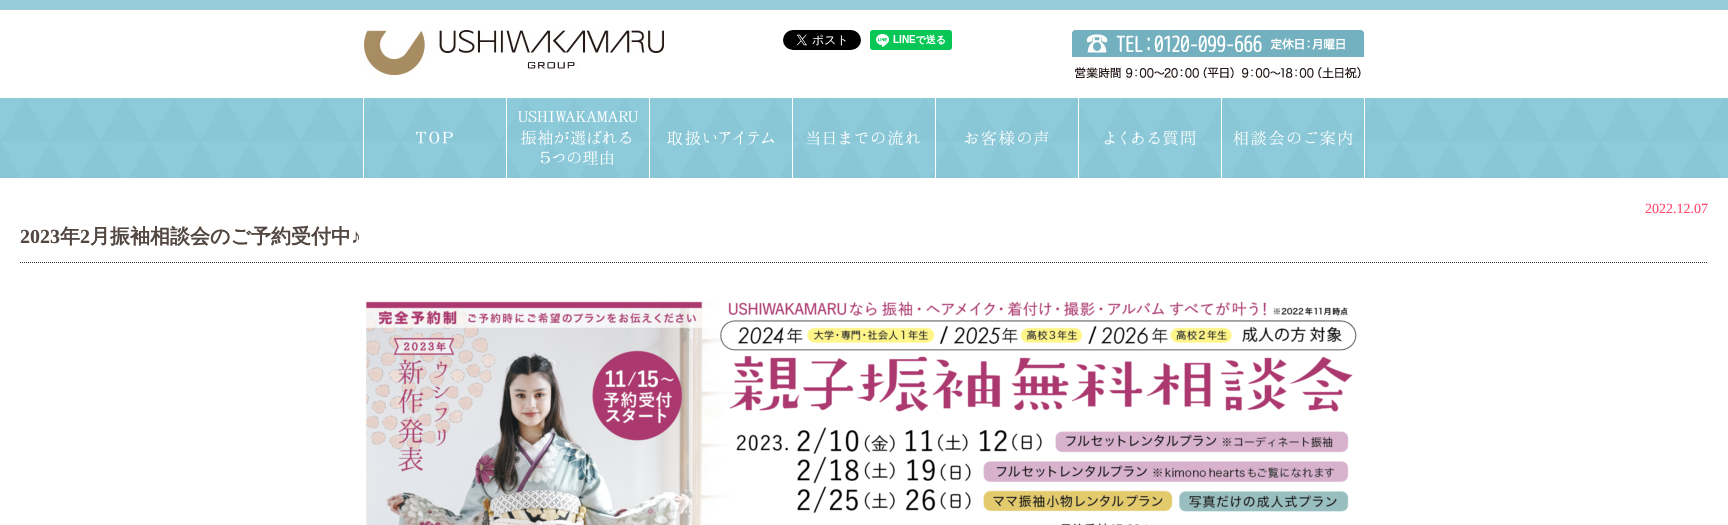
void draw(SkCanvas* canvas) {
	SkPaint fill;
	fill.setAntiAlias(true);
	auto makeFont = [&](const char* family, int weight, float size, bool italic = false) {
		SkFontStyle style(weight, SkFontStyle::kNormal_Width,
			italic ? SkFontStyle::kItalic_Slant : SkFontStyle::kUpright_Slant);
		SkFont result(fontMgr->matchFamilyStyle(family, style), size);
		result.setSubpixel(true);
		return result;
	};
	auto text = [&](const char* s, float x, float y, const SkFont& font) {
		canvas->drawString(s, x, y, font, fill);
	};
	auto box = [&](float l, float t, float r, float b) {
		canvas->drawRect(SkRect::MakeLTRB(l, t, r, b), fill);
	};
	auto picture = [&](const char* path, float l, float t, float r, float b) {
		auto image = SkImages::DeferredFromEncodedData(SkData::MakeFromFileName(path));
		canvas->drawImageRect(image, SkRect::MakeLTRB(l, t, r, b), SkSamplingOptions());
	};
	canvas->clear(0xFFFFFFFF);
	fill.setColor(0xFF99CCDB);
	box(0, 0, 1728, 10);
	picture("image0.png", 364, 30, 664, 75);
	picture("image1.png", 783, 30, 861, 50);
	picture("image2.png", 870, 30, 952, 50);
	picture("image3.png", 1072, 30, 1364, 57);
	picture("image4.png", 1073, 67, 1361, 78);
	picture("image5.png", 0, 98, 1728, 178);
	fill.setColor(0xFFFFFFFF);
	box(1364, 98, 1365, 178);
	box(363, 98, 364, 178);
	picture("image6.png", 416, 131, 453, 144);
	box(506, 98, 507, 178);
	picture("image7.png", 518, 111, 638, 165);
	box(649, 98, 650, 178);
	picture("image8.png", 667, 130, 774, 146);
	box(792, 98, 793, 178);
	picture("image9.png", 806, 130, 921, 146);
	box(935, 98, 936, 178);
	picture("image10.png", 964, 130, 1049, 146);
	box(1078, 98, 1079, 178);
	picture("image11.png", 1104, 130, 1195, 146);
	box(1221, 98, 1222, 178);
	picture("image12.png", 1233, 130, 1352, 146);
	fill.setStyle(SkPaint::kStroke_Style);
	fill.setStrokeWidth(1);
	fill.setColor(0xFF333333);
	fill.setPathEffect(SkDashPathEffect::Make({{1, 1}}, 0));
	canvas->drawPath(SkPathBuilder().moveTo(20, 262.5f).lineTo(1708, 262.5f).detach(), fill);
	fill.setPathEffect(nullptr);
	picture("image13.png", 366, 301, 1357, 525);
	auto font1 = makeFont("Liberation Serif", 400, 14);
	fill.setStyle(SkPaint::kFill_Style);
	fill.setColor(0xFFFF486C);
	text("2022.12.07", 1645, 213, font1);
	auto font2 = makeFont("Liberation Serif", 700, 20);
	fill.setColor(0xFF534741);
	text("2023", 20, 243, font2);
	auto font3 = makeFont("WenQuanYi Zen Hei", 700, 20);
	text("年", 60, 243, font3);
	text("2", 80, 243, font2);
	text("月振袖相談会のご予約受付中", 90, 243, font3);
	text("♪", 351, 243, font2);
}
